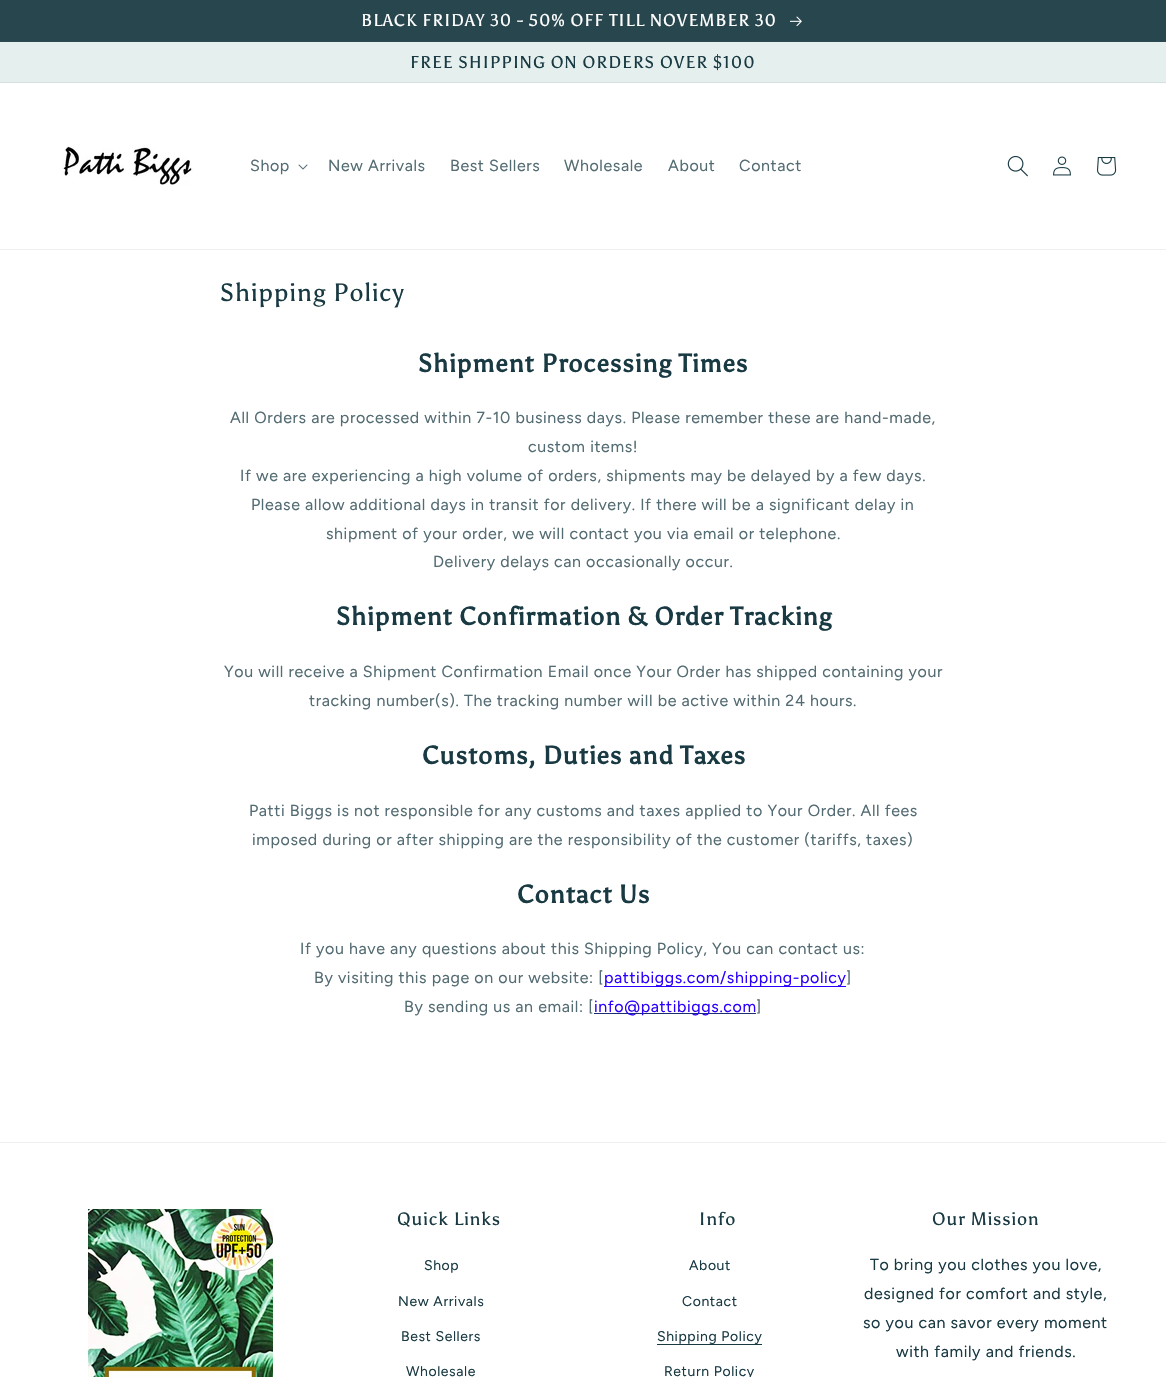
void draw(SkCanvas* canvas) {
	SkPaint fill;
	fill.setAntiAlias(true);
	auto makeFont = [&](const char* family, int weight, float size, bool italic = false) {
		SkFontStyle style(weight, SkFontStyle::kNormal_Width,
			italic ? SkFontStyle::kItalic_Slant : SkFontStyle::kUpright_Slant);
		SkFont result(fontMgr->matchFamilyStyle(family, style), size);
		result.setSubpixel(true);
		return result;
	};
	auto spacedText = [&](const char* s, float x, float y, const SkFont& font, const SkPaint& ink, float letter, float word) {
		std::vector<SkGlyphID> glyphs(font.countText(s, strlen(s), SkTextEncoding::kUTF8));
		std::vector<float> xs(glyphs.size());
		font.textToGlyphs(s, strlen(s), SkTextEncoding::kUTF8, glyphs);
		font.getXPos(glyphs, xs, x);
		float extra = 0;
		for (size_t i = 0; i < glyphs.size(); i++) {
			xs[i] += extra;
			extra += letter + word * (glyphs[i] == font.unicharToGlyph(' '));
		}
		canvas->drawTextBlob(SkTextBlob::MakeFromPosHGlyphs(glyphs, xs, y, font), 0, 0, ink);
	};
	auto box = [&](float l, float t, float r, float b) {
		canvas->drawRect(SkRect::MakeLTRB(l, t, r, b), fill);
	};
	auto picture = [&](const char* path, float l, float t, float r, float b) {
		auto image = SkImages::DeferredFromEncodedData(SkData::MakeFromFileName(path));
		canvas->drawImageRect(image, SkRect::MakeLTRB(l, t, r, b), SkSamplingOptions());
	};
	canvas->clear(0xFFFFFFFF);
	fill.setColor(0xFF2B4A52);
	box(0, 41, 1166, 42);
	fill.setColor(0xFF27464E);
	box(0, 0, 1166, 41);
	picture("image0.png", 790, 16, 802, 26);
	fill.setColor(0xFFE5F0EE);
	box(0, 42, 1166, 82);
	fill.setColor(0xFFD5E1E0);
	box(0, 82, 1166, 83);
	fill.setColor(0xFFEDEFF0);
	box(0, 249, 1166, 250);
	picture("image1.png", 62, 145, 194, 185);
	picture("image2.png", 298, 164, 308, 170);
	picture("image3.png", 1007, 155, 1028, 177);
	picture("image4.png", 1053, 156, 1071, 176);
	picture("image5.png", 1097, 157, 1117, 176);
	fill.setColor(0xFF2B00FF);
	box(604, 986, 846, 987);
	fill.setColor(0xFF1E2C72);
	box(594, 1013, 756, 1014);
	fill.setColor(0xFFEDEFF0);
	box(0, 1142, 1166, 1143);
	picture("image6.png", 88, 1209, 273, 1377);
	fill.setColor(0xFF193A43);
	box(657, 1344, 762, 1345);
	auto font1 = makeFont("Asul", 400, 17);
	fill.setColor(0xFFFFFFFF);
	spacedText("BLACK FRIDAY 30 - 50% OFF TILL NOVEMBER 30", 361, 26, font1, fill, 1, 0);
	fill.setColor(0xFF193A43);
	spacedText("FREE SHIPPING ON ORDERS OVER $100", 410, 68, font1, fill, 1, 0);
	auto font2 = makeFont("Figtree", 400, 16);
	fill.setColor(0xFF536B72);
	spacedText("Shop", 250, 171, font2, fill, 0.6f, 0);
	spacedText("New Arrivals", 328, 171, font2, fill, 0.6f, 0);
	spacedText("Best Sellers", 450, 171, font2, fill, 0.6f, 0);
	spacedText("Wholesale", 564, 171, font2, fill, 0.6f, 0);
	spacedText("About", 668, 171, font2, fill, 0.6f, 0);
	spacedText("Contact", 739, 171, font2, fill, 0.6f, 0);
	auto font3 = makeFont("Asul", 400, 25);
	fill.setColor(0xFF193A43);
	spacedText("Shipping Policy", 220, 301, font3, fill, 0.85f, 0);
	auto font4 = makeFont("Asul", 700, 25.25f);
	spacedText("Shipment Processing Times", 418, 372, font4, fill, 0.85f, 0);
	fill.setColor(0xFF536B72);
	spacedText("All Orders are processed within 7-10 business days. Please remember these are hand-made,", 230, 423, font2, fill, 0.6f, 0);
	spacedText("custom items!", 528, 452, font2, fill, 0.6f, 0);
	spacedText("If we are experiencing a high volume of orders, shipments may be delayed by a few days.", 240, 481, font2, fill, 0.6f, 0);
	spacedText("Please allow additional days in transit for delivery. If there will be a significant delay in", 251, 510, font2, fill, 0.6f, 0);
	spacedText("shipment of your order, we will contact you via email or telephone.", 326, 539, font2, fill, 0.6f, 0);
	spacedText("Delivery delays can occasionally occur.", 433, 567, font2, fill, 0.6f, 0);
	fill.setColor(0xFF193A43);
	spacedText("Shipment Confirmation & Order Tracking", 336, 625, font4, fill, 0.85f, 0);
	fill.setColor(0xFF536B72);
	spacedText("You will receive a Shipment Confirmation Email once Your Order has shipped containing your", 224, 677, font2, fill, 0.6f, 0);
	spacedText("tracking number(s). The tracking number will be active within 24 hours.", 309, 706, font2, fill, 0.6f, 0);
	fill.setColor(0xFF193A43);
	spacedText("Customs, Duties and Taxes", 422, 764, font4, fill, 0.85f, 0);
	fill.setColor(0xFF536B72);
	spacedText("Patti Biggs is not responsible for any customs and taxes applied to Your Order. All fees", 249, 816, font2, fill, 0.6f, 0);
	spacedText("imposed during or after shipping are the responsibility of the customer (tariffs, taxes)", 252, 845, font2, fill, 0.6f, 0);
	fill.setColor(0xFF193A43);
	spacedText("Contact Us", 517, 903, font4, fill, 0.85f, 0);
	fill.setColor(0xFF536B72);
	spacedText("If you have any questions about this Shipping Policy, You can contact us:", 300, 954, font2, fill, 0.6f, 0);
	spacedText("By visiting this page on our website: [", 314, 983, font2, fill, 0.6f, 0);
	fill.setColor(0xFF2B00FF);
	spacedText("pattibiggs.com/shipping-policy", 604, 983, font2, fill, 0.6f, 0);
	fill.setColor(0xFF536B72);
	spacedText("]", 846, 983, font2, fill, 0.6f, 0);
	spacedText("By sending us an email: [", 404, 1012, font2, fill, 0.6f, 0);
	fill.setColor(0xFF2B00FF);
	spacedText("info@pattibiggs.com", 594, 1012, font2, fill, 0.6f, 0);
	fill.setColor(0xFF536B72);
	spacedText("]", 756, 1012, font2, fill, 0.6f, 0);
	auto font5 = makeFont("Asul", 400, 18);
	fill.setColor(0xFF193A43);
	spacedText("Quick Links", 397, 1225, font5, fill, 0.85f, 0);
	auto font6 = makeFont("Figtree", 400, 14);
	spacedText("Shop", 424, 1270, font6, fill, 0.6f, 0);
	spacedText("New Arrivals", 398, 1306, font6, fill, 0.6f, 0);
	spacedText("Best Sellers", 401, 1341, font6, fill, 0.6f, 0);
	spacedText("Wholesale", 406, 1376, font6, fill, 0.6f, 0);
	spacedText("Info", 699, 1225, font5, fill, 0.85f, 0);
	spacedText("About", 689, 1270, font6, fill, 0.6f, 0);
	spacedText("Contact", 682, 1306, font6, fill, 0.6f, 0);
	spacedText("Shipping Policy", 657, 1341, font6, fill, 0.6f, 0);
	spacedText("Return Policy", 664, 1376, font6, fill, 0.6f, 0);
	spacedText("Our Mission", 932, 1225, font5, fill, 0.85f, 0);
	spacedText("To bring you clothes you love,", 870, 1270, font2, fill, 0.6f, 0);
	spacedText("designed for comfort and style,", 864, 1299, font2, fill, 0.6f, 0);
	spacedText("so you can savor every moment", 863, 1328, font2, fill, 0.6f, 0);
	spacedText("with family and friends.", 896, 1357, font2, fill, 0.6f, 0);
}
